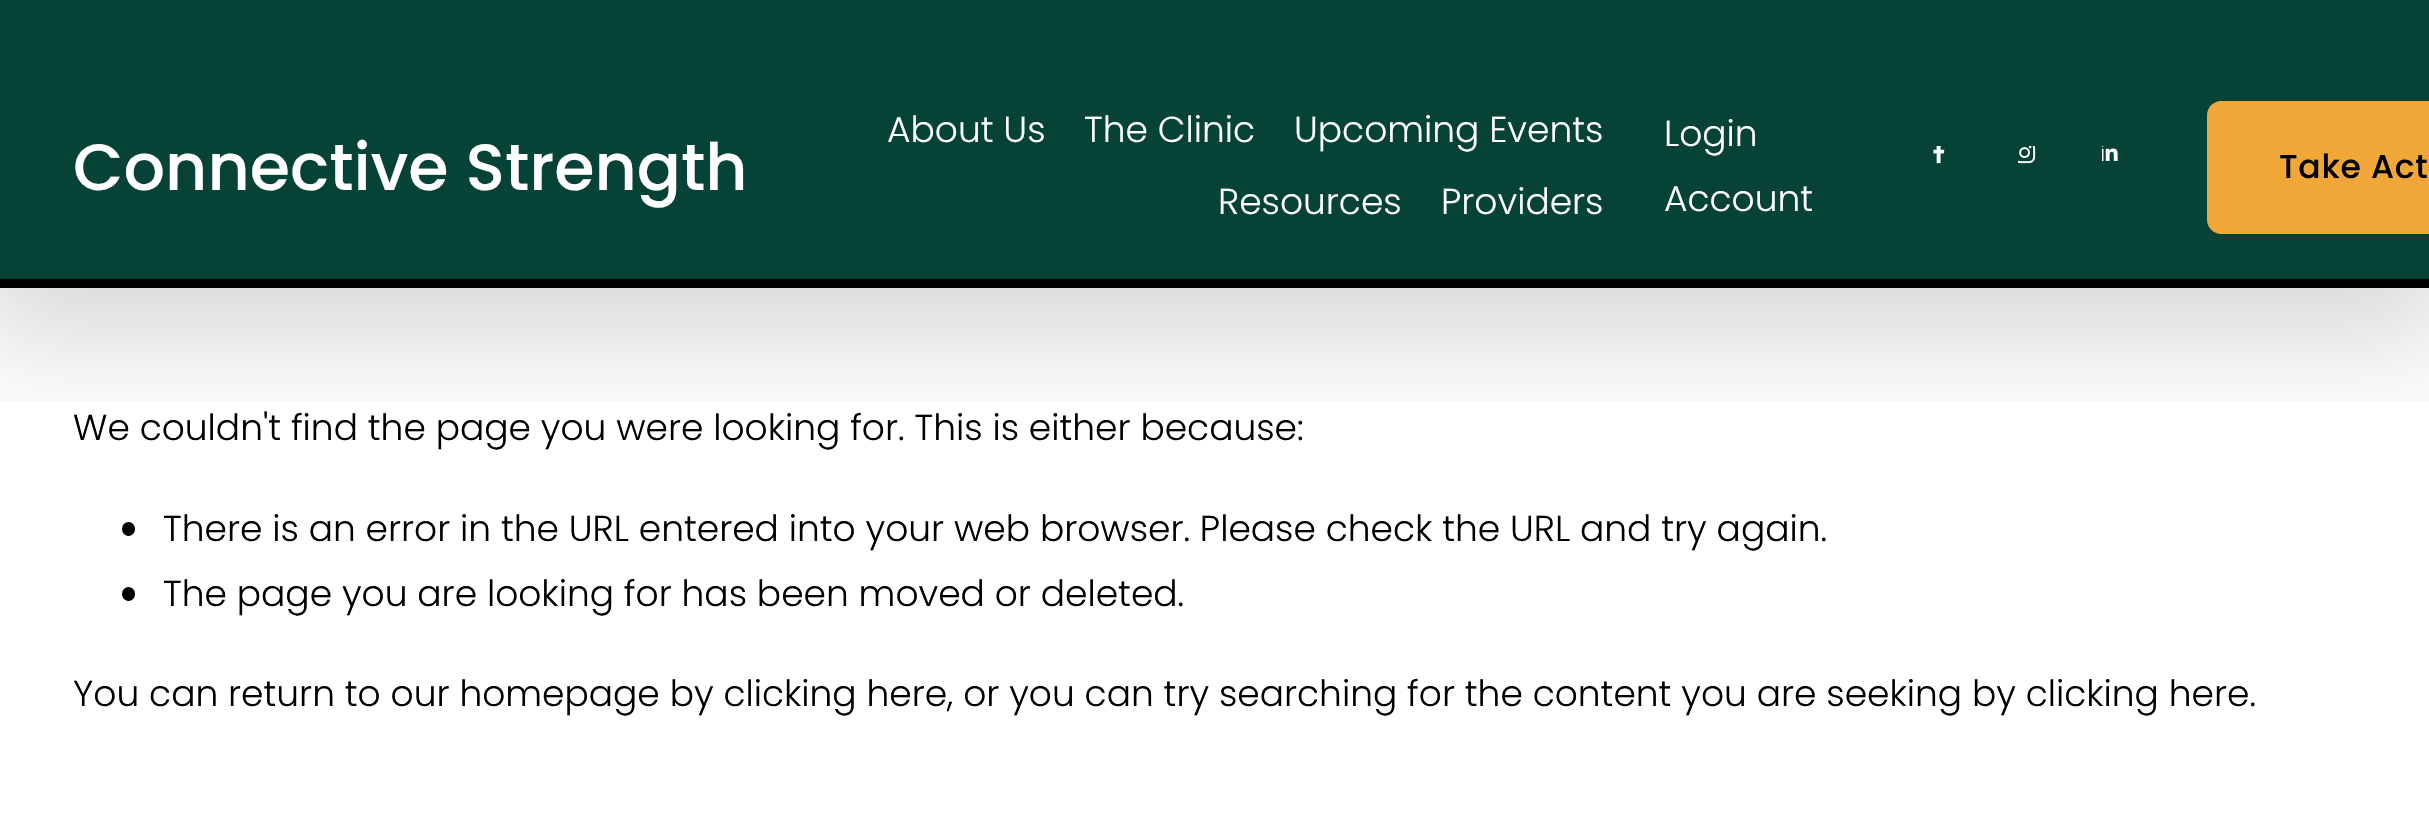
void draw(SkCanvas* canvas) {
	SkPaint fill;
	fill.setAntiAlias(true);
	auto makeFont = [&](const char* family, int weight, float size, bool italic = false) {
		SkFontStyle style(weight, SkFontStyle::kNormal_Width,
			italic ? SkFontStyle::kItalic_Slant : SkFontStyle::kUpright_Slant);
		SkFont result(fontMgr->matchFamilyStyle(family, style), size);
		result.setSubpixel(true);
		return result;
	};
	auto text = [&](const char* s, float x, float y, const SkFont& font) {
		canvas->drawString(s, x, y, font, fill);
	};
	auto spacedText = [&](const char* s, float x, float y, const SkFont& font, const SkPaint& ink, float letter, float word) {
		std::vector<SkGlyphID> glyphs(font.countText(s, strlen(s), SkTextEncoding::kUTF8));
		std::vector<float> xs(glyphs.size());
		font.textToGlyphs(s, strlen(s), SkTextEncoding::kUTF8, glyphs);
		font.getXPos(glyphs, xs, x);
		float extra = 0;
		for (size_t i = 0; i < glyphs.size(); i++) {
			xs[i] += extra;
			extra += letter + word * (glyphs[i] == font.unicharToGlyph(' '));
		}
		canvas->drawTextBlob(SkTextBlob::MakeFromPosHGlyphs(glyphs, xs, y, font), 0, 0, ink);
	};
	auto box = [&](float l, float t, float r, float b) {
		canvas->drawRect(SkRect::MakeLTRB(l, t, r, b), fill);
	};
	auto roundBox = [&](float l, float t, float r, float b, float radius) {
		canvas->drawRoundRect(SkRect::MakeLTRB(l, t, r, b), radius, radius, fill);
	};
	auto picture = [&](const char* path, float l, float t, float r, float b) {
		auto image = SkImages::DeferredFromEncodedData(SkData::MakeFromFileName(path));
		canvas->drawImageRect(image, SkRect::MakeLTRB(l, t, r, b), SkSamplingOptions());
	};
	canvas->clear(0xFFFFFFFF);
	fill.setColor(0xFF064236);
	box(0, 0, 2429, 279);
	canvas->save();
	canvas->clipRect(SkRect::MakeLTRB(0, 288, 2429, 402));
	fill.setColor(0x26000000);
	fill.setMaskFilter(SkMaskFilter::MakeBlur(kNormal_SkBlurStyle, 54));
	canvas->drawRect(SkRect::MakeLTRB(-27, 0, 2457, 342), fill);
	fill.setMaskFilter(nullptr);
	canvas->restore();
	picture("image0.png", 1933, 146, 1945, 164);
	picture("image1.png", 2018, 146, 2036, 164);
	picture("image2.png", 2102, 146, 2118, 161);
	fill.setColor(0xFFF1A638);
	canvas->drawPath(SkPathBuilder().moveTo(2221, 101).lineTo(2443, 101).lineTo(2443, 234).lineTo(2221, 234).cubicTo(2213.5f, 234, 2207, 227.5f, 2207, 220).lineTo(2207, 115).cubicTo(2207, 107.5f, 2213.5f, 101, 2221, 101).close().detach(), fill);
	fill.setColor(0xFF000000);
	box(0, 279, 2429, 288);
	roundBox(122, 522, 135, 536, 6.5f);
	roundBox(122, 587, 135, 601, 6.5f);
	auto font1 = makeFont("Poppins", 500, 65.25f);
	fill.setColor(0xFFFFFFFF);
	text("Connective Strength", 73, 190, font1);
	auto font2 = makeFont("Poppins", 300, 36);
	text("About Us", 887, 142, font2);
	text("The Clinic", 1084, 142, font2);
	text("Upcoming Events", 1294, 142, font2);
	text("Resources", 1218, 214, font2);
	text("Providers", 1441, 214, font2);
	text("Login", 1664, 146, font2);
	text("Account", 1664, 211, font2);
	auto font3 = makeFont("Poppins", 500, 33);
	fill.setColor(0xFF000000);
	spacedText("Take Act", 2279, 178, font3, fill, 0.75f, 0);
	text("We couldn't find the page you were looking for. This is either because:", 73, 440, font2);
	text("There is an error in the URL entered into your web browser. Please check the URL and try again.", 163, 541, font2);
	text("The page you are looking for has been moved or deleted.", 163, 606, font2);
	text("You can return to our homepage by clicking here, or you can try searching for the content you are seeking by clicking here.", 73, 706, font2);
}
